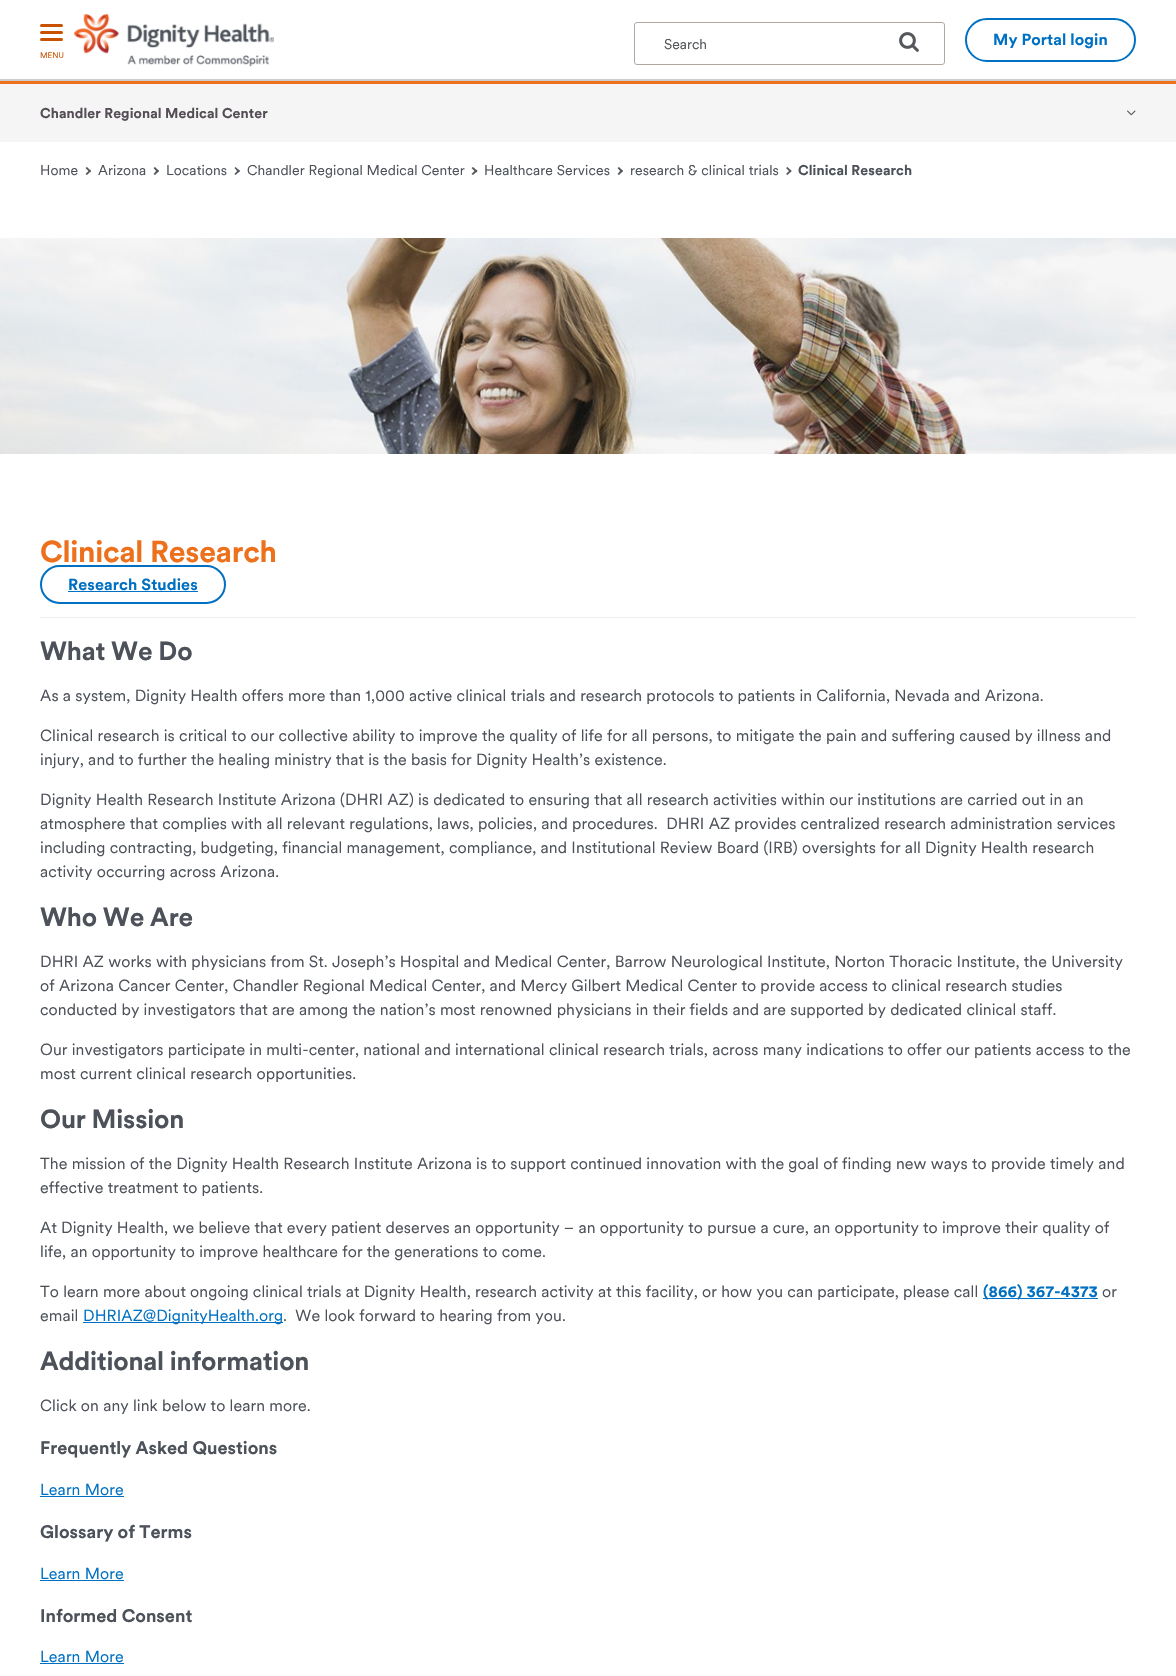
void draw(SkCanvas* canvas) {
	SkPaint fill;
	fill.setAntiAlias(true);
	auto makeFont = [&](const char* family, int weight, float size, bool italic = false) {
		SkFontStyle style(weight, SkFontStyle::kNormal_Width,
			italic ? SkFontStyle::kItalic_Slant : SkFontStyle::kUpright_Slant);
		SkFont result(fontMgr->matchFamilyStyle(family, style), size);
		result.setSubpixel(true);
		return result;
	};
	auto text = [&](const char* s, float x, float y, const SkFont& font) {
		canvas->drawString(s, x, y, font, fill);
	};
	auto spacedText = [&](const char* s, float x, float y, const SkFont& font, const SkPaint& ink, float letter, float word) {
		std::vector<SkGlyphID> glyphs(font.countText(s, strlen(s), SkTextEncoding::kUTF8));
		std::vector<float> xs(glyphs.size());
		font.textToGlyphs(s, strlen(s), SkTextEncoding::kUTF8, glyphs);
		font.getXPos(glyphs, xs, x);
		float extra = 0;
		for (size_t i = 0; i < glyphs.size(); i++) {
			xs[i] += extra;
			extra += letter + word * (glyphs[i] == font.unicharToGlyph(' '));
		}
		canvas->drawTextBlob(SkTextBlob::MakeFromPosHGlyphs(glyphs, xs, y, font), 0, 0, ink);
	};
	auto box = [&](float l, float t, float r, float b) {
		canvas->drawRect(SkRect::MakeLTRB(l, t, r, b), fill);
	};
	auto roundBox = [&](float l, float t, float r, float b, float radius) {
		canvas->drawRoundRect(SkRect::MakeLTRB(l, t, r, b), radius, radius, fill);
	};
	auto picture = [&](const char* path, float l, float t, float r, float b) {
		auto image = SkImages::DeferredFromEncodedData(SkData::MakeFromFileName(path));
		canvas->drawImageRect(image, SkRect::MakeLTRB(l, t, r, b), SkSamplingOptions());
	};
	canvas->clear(0xFFFFFFFF);
	fill.setColor(0xFFCCCCCC);
	box(0, 79, 1176, 81);
	picture("image0.png", 74, 14, 274, 67);
	fill.setStyle(SkPaint::kStroke_Style);
	fill.setStrokeWidth(1);
	fill.setColor(0xFFB0A9A1);
	canvas->drawRoundRect(SkRect::MakeLTRB(634.5f, 22.5f, 944.5f, 64.5f), 2.5f, 2.5f, fill);
	picture("image1.png", 899, 32, 919, 52);
	fill.setStrokeWidth(2);
	fill.setColor(0xFF0071C2);
	canvas->drawRoundRect(SkRect::MakeLTRB(966, 19, 1135, 61), 21, 21, fill);
	fill.setStyle(SkPaint::kFill_Style);
	fill.setColor(0xFFC85200);
	roundBox(40, 24, 63, 27, 1.5f);
	roundBox(40, 31, 63, 34, 1.5f);
	roundBox(40, 38, 63, 41, 1.5f);
	fill.setColor(0xFFED711C);
	box(0, 81, 1176, 84);
	fill.setColor(0xFFF5F5F5);
	box(0, 84, 1176, 142);
	picture("image2.png", 1127, 110, 1136, 116);
	fill.setColor(0xFF53565A);
	canvas->drawPath(SkPathBuilder().moveTo(87, 167).lineTo(91, 171).lineTo(90, 172.5f).lineTo(85.5f, 168).close().detach(), fill);
	canvas->drawPath(SkPathBuilder().moveTo(90, 169.5f).lineTo(91, 171).lineTo(87, 175).lineTo(85.5f, 174).close().detach(), fill);
	canvas->drawPath(SkPathBuilder().moveTo(155, 167).lineTo(159, 171).lineTo(157.5f, 172.5f).lineTo(153.5f, 168).close().detach(), fill);
	canvas->drawPath(SkPathBuilder().moveTo(157.5f, 169.5f).lineTo(159, 171).lineTo(155, 175).lineTo(153.5f, 174).close().detach(), fill);
	canvas->drawPath(SkPathBuilder().moveTo(235.5f, 167).lineTo(240, 171).lineTo(238.5f, 172.5f).lineTo(234.5f, 168).close().detach(), fill);
	canvas->drawPath(SkPathBuilder().moveTo(238.5f, 169.5f).lineTo(240, 171).lineTo(235.5f, 175).lineTo(234.5f, 174).close().detach(), fill);
	canvas->drawPath(SkPathBuilder().moveTo(473, 167).lineTo(477.5f, 171).lineTo(476, 172.5f).lineTo(471.5f, 168).close().detach(), fill);
	canvas->drawPath(SkPathBuilder().moveTo(476, 169.5f).lineTo(477.5f, 171).lineTo(473, 175).lineTo(471.5f, 174).close().detach(), fill);
	canvas->drawPath(SkPathBuilder().moveTo(619, 167).lineTo(623, 171).lineTo(621.5f, 172.5f).lineTo(617.5f, 168).close().detach(), fill);
	canvas->drawPath(SkPathBuilder().moveTo(621.5f, 169.5f).lineTo(623, 171).lineTo(619, 175).lineTo(617.5f, 174).close().detach(), fill);
	canvas->drawPath(SkPathBuilder().moveTo(787.5f, 167).lineTo(791.5f, 171).lineTo(790.5f, 172.5f).lineTo(786, 168).close().detach(), fill);
	canvas->drawPath(SkPathBuilder().moveTo(790.5f, 169.5f).lineTo(791.5f, 171).lineTo(787.5f, 175).lineTo(786, 174).close().detach(), fill);
	picture("image3.png", 0, 238, 1176, 454);
	fill.setStyle(SkPaint::kStroke_Style);
	fill.setColor(0xFF0071C2);
	canvas->drawRoundRect(SkRect::MakeLTRB(41, 566, 225, 603), 18.5f, 18.5f, fill);
	fill.setStyle(SkPaint::kFill_Style);
	box(68, 591, 198, 592);
	fill.setColor(0xFFEEEEEE);
	box(40, 617, 1136, 618);
	fill.setColor(0xFF0071C2);
	box(983, 1298, 1098, 1299);
	box(83, 1322, 283, 1323);
	box(40, 1496, 124, 1497);
	box(40, 1580, 124, 1581);
	box(40, 1663, 124, 1664);
	auto font1 = makeFont("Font", 400, 14);
	fill.setColor(0xFF53565A);
	text("Search", 664, 49, font1);
	auto font2 = makeFont("Font", 700, 16);
	fill.setColor(0xFF0071C2);
	spacedText("My Portal login", 993, 45, font2, fill, 0.1f, 0);
	auto font3 = makeFont("Font", 400, 8);
	fill.setColor(0xFFC85200);
	text("MENU", 40, 58, font3);
	auto font4 = makeFont("Font", 700, 14);
	fill.setColor(0xFF554D56);
	spacedText("Chandler Regional Medical Center", 40, 118, font4, fill, 0.1f, 0);
	fill.setColor(0xFF4D525A);
	spacedText("Home", 40, 175, font1, fill, 0.1f, 0);
	spacedText("Arizona", 98, 175, font1, fill, 0.1f, 0);
	spacedText("Locations", 166, 175, font1, fill, 0.1f, 0);
	spacedText("Chandler Regional Medical Center", 247, 175, font1, fill, 0.1f, 0);
	spacedText("Healthcare Services", 484, 175, font1, fill, 0.1f, 0);
	spacedText("research & clinical trials", 630, 175, font1, fill, 0.1f, 0);
	spacedText("Clinical Research", 798, 175, font4, fill, 0.1f, 0);
	auto font5 = makeFont("Font", 700, 30);
	fill.setColor(0xFFED711C);
	spacedText("Clinical Research", 40, 562, font5, fill, -0.25f, 0);
	fill.setColor(0xFF0071C2);
	spacedText("Research Studies", 68, 590, font2, fill, 0.1f, 0);
	auto font6 = makeFont("Font", 700, 26);
	fill.setColor(0xFF4D525A);
	spacedText("What We Do", 40, 660, font6, fill, -0.2f, 0);
	auto font7 = makeFont("Font", 400, 16);
	spacedText("As a system, Dignity Health offers more than 1,000 active clinical trials and research protocols to patients in California, Nevada and Arizona.", 40, 701, font7, fill, 0.1f, 0);
	spacedText("Clinical research is critical to our collective ability to improve the quality of life for all persons, to mitigate the pain and suffering caused by illness and", 40, 741, font7, fill, 0.1f, 0);
	spacedText("injury, and to further the healing ministry that is the basis for Dignity Health’s existence.", 40, 765, font7, fill, 0.1f, 0);
	spacedText("Dignity Health Research Institute Arizona (DHRI AZ) is dedicated to ensuring that all research activities within our institutions are carried out in an", 40, 805, font7, fill, 0.1f, 0);
	spacedText("atmosphere that complies with all relevant regulations, laws, policies, and procedures.  DHRI AZ provides centralized research administration services", 40, 829, font7, fill, 0.1f, 0);
	spacedText("including contracting, budgeting, financial management, compliance, and Institutional Review Board (IRB) oversights for all Dignity Health research", 40, 853, font7, fill, 0.1f, 0);
	spacedText("activity occurring across Arizona.", 40, 877, font7, fill, 0.1f, 0);
	spacedText("Who We Are", 40, 926, font6, fill, -0.2f, 0);
	spacedText("DHRI AZ works with physicians from St. Joseph’s Hospital and Medical Center, Barrow Neurological Institute, Norton Thoracic Institute, the University", 40, 967, font7, fill, 0.1f, 0);
	spacedText("of Arizona Cancer Center, Chandler Regional Medical Center, and Mercy Gilbert Medical Center to provide access to clinical research studies", 40, 991, font7, fill, 0.1f, 0);
	spacedText("conducted by investigators that are among the nation’s most renowned physicians in their fields and are supported by dedicated clinical staff.", 40, 1015, font7, fill, 0.1f, 0);
	spacedText("Our investigators participate in multi-center, national and international clinical research trials, across many indications to offer our patients access to the", 40, 1055, font7, fill, 0.1f, 0);
	spacedText("most current clinical research opportunities.", 40, 1079, font7, fill, 0.1f, 0);
	spacedText("Our Mission", 40, 1128, font6, fill, -0.2f, 0);
	spacedText("The mission of the Dignity Health Research Institute Arizona is to support continued innovation with the goal of finding new ways to provide timely and", 40, 1169, font7, fill, 0.1f, 0);
	spacedText("effective treatment to patients.", 40, 1193, font7, fill, 0.1f, 0);
	spacedText("At Dignity Health, we believe that every patient deserves an opportunity – an opportunity to pursue a cure, an opportunity to improve their quality of", 40, 1233, font7, fill, 0.1f, 0);
	spacedText("life, an opportunity to improve healthcare for the generations to come.", 40, 1257, font7, fill, 0.1f, 0);
	spacedText("To learn more about ongoing clinical trials at Dignity Health, research activity at this facility, or how you can participate, please call", 40, 1297, font7, fill, 0.1f, 0);
	fill.setColor(0xFF0071C2);
	spacedText("(866) 367-4373", 983, 1297, font2, fill, 0.1f, 0);
	fill.setColor(0xFF4D525A);
	spacedText("or", 1102, 1297, font7, fill, 0.1f, 0);
	spacedText("email", 40, 1321, font7, fill, 0.1f, 0);
	fill.setColor(0xFF0071C2);
	spacedText("DHRIAZ@DignityHealth.org", 83, 1321, font7, fill, 0.1f, 0);
	fill.setColor(0xFF4D525A);
	spacedText(".  We look forward to hearing from you.", 283, 1321, font7, fill, 0.1f, 0);
	spacedText("Additional information", 40, 1370, font6, fill, -0.2f, 0);
	spacedText("Click on any link below to learn more.", 40, 1411, font7, fill, 0.1f, 0);
	auto font8 = makeFont("Font", 700, 18);
	text("Frequently Asked Questions", 40, 1454, font8);
	fill.setColor(0xFF0071C2);
	spacedText("Learn More", 40, 1495, font7, fill, 0.1f, 0);
	fill.setColor(0xFF4D525A);
	text("Glossary of Terms", 40, 1538, font8);
	fill.setColor(0xFF0071C2);
	spacedText("Learn More", 40, 1579, font7, fill, 0.1f, 0);
	fill.setColor(0xFF4D525A);
	text("Informed Consent", 40, 1622, font8);
	fill.setColor(0xFF0071C2);
	spacedText("Learn More", 40, 1662, font7, fill, 0.1f, 0);
}
